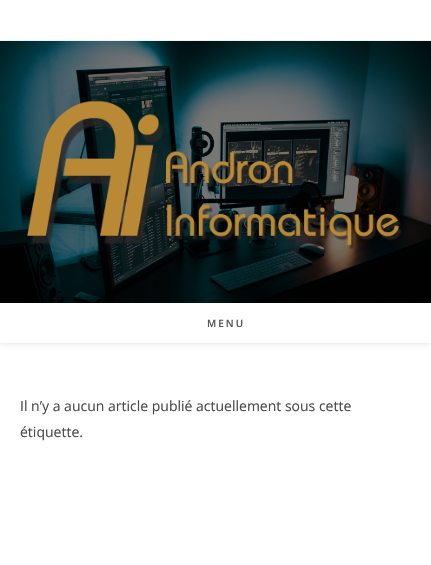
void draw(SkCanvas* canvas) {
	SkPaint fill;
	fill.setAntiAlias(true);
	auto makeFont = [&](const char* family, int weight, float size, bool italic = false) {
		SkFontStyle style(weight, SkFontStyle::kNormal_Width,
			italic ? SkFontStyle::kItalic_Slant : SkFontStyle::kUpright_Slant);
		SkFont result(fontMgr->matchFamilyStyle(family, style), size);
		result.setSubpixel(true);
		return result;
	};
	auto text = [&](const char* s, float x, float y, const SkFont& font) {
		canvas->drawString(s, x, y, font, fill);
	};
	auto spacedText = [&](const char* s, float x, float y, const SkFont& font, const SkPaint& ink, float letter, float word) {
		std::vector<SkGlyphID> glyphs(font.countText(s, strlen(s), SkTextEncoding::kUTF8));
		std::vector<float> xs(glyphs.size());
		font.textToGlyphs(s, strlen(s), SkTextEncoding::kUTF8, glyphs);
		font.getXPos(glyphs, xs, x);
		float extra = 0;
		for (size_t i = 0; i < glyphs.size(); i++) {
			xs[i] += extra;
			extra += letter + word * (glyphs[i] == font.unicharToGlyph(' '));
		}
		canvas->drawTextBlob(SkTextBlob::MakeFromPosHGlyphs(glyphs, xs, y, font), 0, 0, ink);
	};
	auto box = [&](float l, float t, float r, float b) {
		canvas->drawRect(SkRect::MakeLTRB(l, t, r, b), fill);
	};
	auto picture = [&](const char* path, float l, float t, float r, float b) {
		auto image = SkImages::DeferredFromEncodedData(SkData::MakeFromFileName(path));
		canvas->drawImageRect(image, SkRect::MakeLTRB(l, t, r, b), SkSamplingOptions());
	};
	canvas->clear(0xFFFFFFFF);
	fill.setColor(0xFFF1F1F1);
	box(0, 40, 431, 41);
	picture("image0.png", 0, 41, 431, 303);
	picture("image1.png", 27, 100, 402, 250);
	fill.setColor(0x1A000000);
	fill.setMaskFilter(SkMaskFilter::MakeBlur(kNormal_SkBlurStyle, 2.5f));
	canvas->drawRect(SkRect::MakeLTRB(0, 304, 431, 344), fill);
	fill.setMaskFilter(nullptr);
	fill.setColor(0xFFFFFFFF);
	box(0, 303, 431, 343);
	auto font1 = makeFont("Open Sans", 600, 10);
	fill.setColor(0xFF555555);
	spacedText("MENU", 207, 327, font1, fill, 2, 0);
	auto font2 = makeFont("Open Sans", 400, 14);
	fill.setColor(0xFF4A4A4A);
	text("Il n’y a aucun article publié actuellement sous cette", 20, 411, font2);
	text("étiquette.", 20, 437, font2);
}
